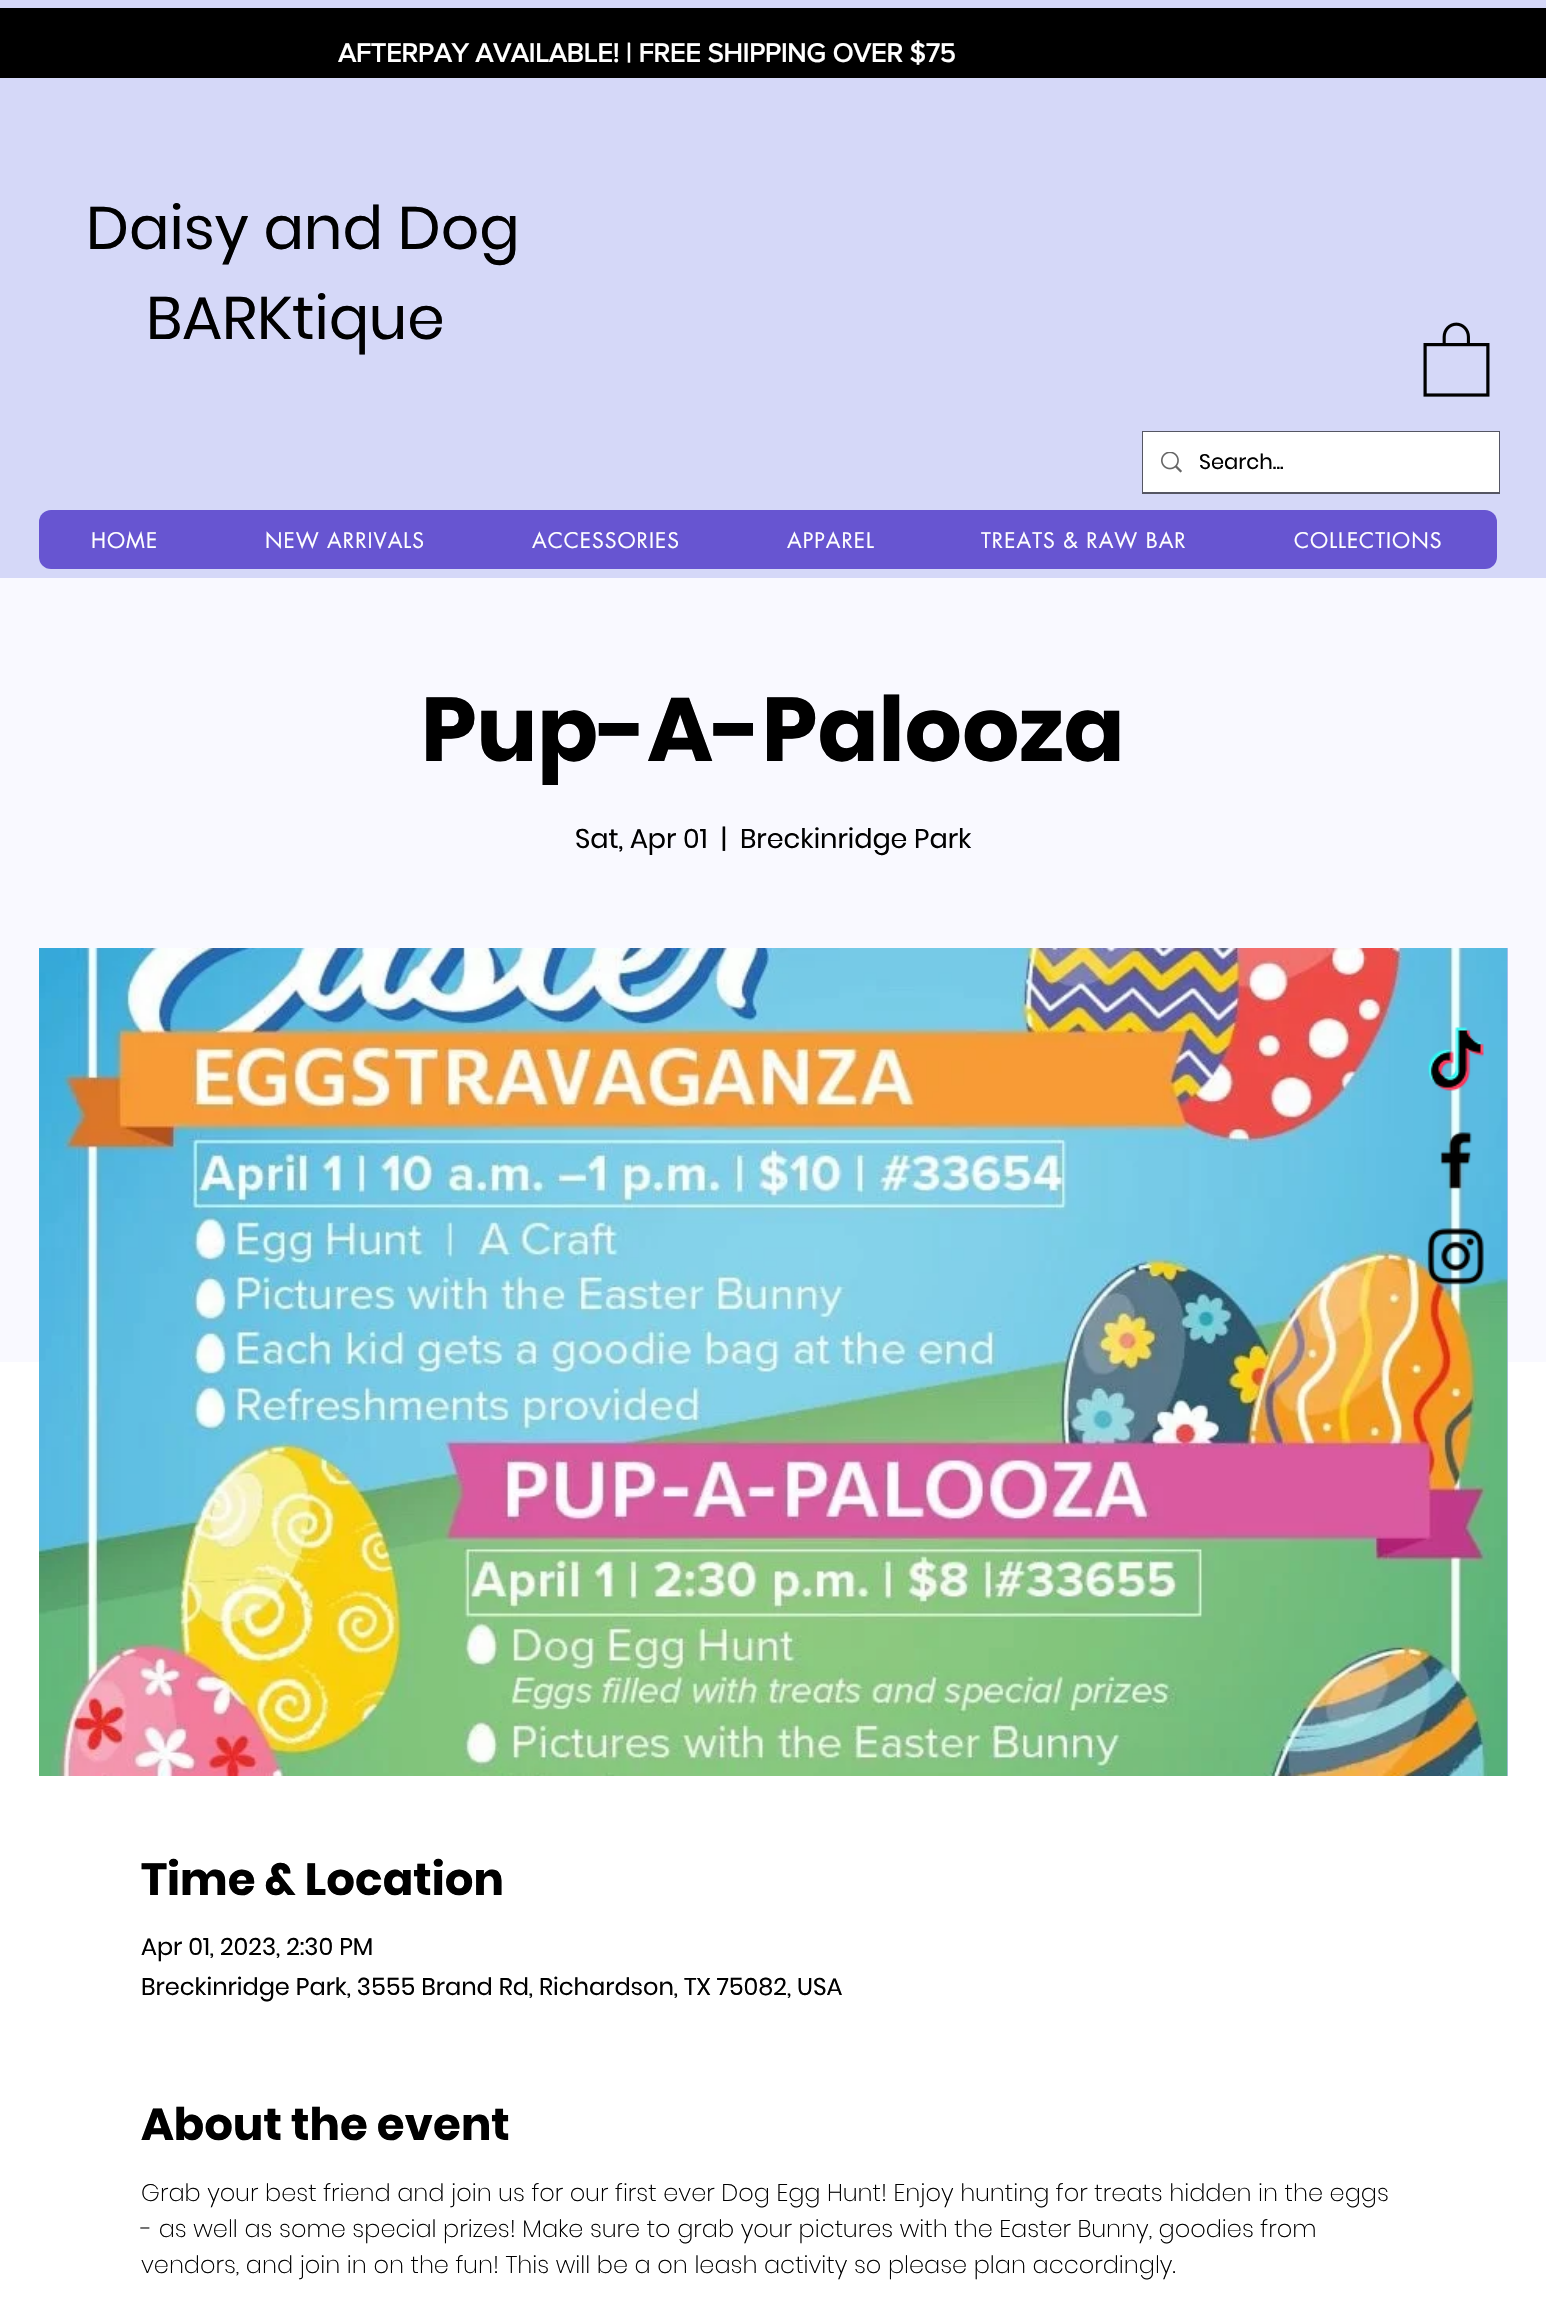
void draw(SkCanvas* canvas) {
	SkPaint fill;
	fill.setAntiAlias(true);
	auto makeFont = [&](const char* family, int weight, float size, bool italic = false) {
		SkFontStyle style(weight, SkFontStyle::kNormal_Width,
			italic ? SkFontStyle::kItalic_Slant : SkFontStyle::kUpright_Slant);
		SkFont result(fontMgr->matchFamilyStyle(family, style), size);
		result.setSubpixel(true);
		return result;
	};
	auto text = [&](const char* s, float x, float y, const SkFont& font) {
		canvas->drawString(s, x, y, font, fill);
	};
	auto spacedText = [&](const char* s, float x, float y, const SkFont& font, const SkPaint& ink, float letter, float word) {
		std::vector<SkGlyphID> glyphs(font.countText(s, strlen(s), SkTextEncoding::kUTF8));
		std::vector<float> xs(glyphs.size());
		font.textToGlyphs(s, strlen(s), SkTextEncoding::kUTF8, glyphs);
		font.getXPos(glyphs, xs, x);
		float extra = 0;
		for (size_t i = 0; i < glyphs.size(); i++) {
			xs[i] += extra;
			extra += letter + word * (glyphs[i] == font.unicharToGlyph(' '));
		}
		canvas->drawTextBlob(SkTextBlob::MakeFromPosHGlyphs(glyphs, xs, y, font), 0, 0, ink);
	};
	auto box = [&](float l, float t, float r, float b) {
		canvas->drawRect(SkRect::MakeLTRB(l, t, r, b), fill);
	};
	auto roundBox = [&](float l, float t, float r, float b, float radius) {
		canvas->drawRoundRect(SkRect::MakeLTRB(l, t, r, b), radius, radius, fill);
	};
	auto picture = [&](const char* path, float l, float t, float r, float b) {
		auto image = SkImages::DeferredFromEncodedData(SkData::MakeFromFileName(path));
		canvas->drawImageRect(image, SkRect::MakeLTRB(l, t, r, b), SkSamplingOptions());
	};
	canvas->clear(0xFFD5D8F8);
	fill.setColor(0xFF000000);
	box(0, 8, 1546, 78);
	picture("image0.png", 1423, 322, 1490, 397);
	fill.setStyle(SkPaint::kStroke_Style);
	fill.setStrokeWidth(2);
	fill.setColor(0xFF555663);
	canvas->drawRect(SkRect::MakeLTRB(1143, 432, 1499, 493), fill);
	fill.setStyle(SkPaint::kFill_Style);
	fill.setColor(0xFFFFFFFF);
	box(1143, 432, 1499, 492);
	picture("image1.png", 1161, 452, 1182, 473);
	fill.setColor(0xFF6755D1);
	roundBox(39, 510, 1497, 569, 12);
	fill.setColor(0xFFF9F9FF);
	box(0, 578, 1546, 1362);
	fill.setColor(0xFFFFFFFF);
	box(0, 1362, 1546, 2318);
	fill.setColor(0xFFBBBFF0);
	box(1507, 948, 1508, 1776);
	picture("image2.png", 39, 948, 1508, 1776);
	picture("image3.png", 1427, 1027, 1484, 1091);
	picture("image4.png", 1440, 1132, 1472, 1190);
	picture("image5.png", 1427, 1228, 1484, 1285);
	auto font1 = makeFont("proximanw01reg", 700, 27);
	fill.setColor(0xFFFFFFFF);
	text("AFTERPAY AVAILABLE! | FREE SHIPPING OVER $75", 338, 62, font1);
	auto font2 = makeFont("Poppins", 400, 60);
	fill.setColor(0xFF000000);
	text("Daisy and Dog", 86, 249, font2);
	text("BARKtique", 146, 339, font2);
	auto font3 = makeFont("Poppins", 400, 21);
	text("Search...", 1199, 469, font3);
	auto font4 = makeFont("futura", 400, 21);
	fill.setColor(0xFFFFFFFF);
	spacedText("HOME", 91, 548, font4, fill, 1, 0);
	spacedText("NEW ARRIVALS", 265, 548, font4, fill, 1, 0);
	spacedText("ACCESSORIES", 532, 548, font4, fill, 1, 0);
	spacedText("APPAREL", 787, 548, font4, fill, 1, 0);
	spacedText("TREATS & RAW BAR", 981, 548, font4, fill, 1, 0);
	spacedText("COLLECTIONS", 1294, 548, font4, fill, 1, 0);
	auto font5 = makeFont("Poppins", 700, 90);
	fill.setColor(0xFF000000);
	text("Pup-A-Palooza", 421, 761, font5);
	auto font6 = makeFont("Poppins", 400, 27);
	text("Sat, Apr 01", 575, 848, font6);
	text("|", 721, 848, font6);
	text("Breckinridge Park", 740, 848, font6);
	auto font7 = makeFont("Poppins", 700, 45);
	text("Time & Location", 141, 1895, font7);
	auto font8 = makeFont("Poppins", 400, 24);
	text("Apr 01, 2023, 2:30 PM", 141, 1955, font8);
	text("Breckinridge Park, 3555 Brand Rd, Richardson, TX 75082, USA", 141, 1995, font8);
	text("About the event", 141, 2140, font7);
	auto font9 = makeFont("Poppins", 200, 24);
	text("Grab your best friend and join us for our first ever Dog Egg Hunt! Enjoy hunting for treats hidden in the eggs", 141, 2201, font9);
	text("- as well as some special prizes! Make sure to grab your pictures with the Easter Bunny, goodies from", 141, 2237, font9);
	text("vendors, and join in on the fun! This will be a on leash activity so please plan accordingly.", 141, 2273, font9);
}
